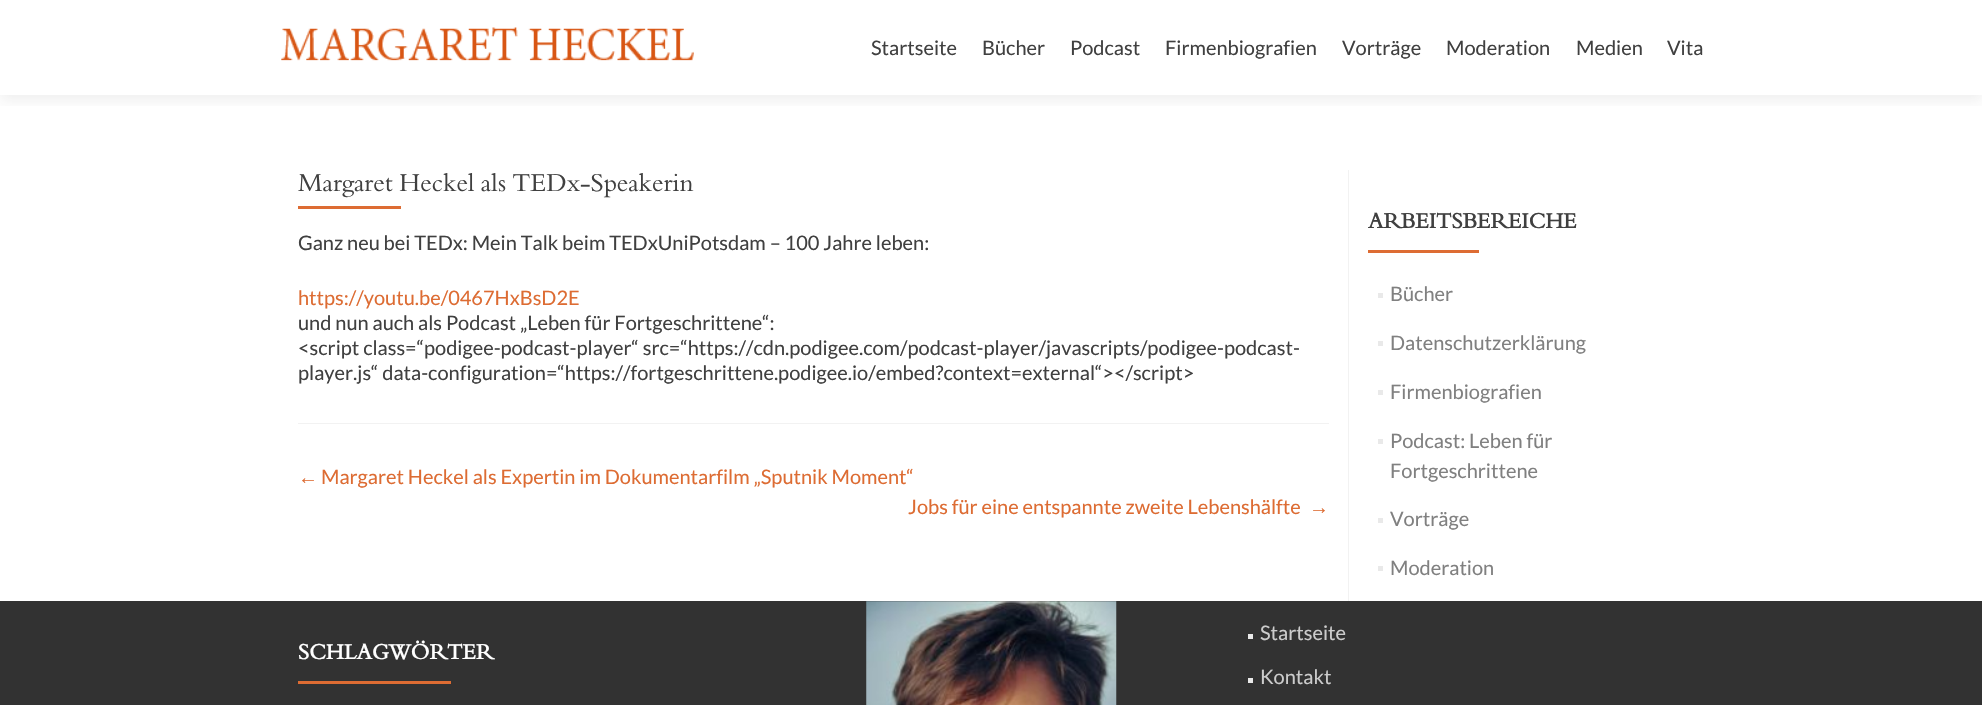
void draw(SkCanvas* canvas) {
	SkPaint fill;
	fill.setAntiAlias(true);
	auto makeFont = [&](const char* family, int weight, float size, bool italic = false) {
		SkFontStyle style(weight, SkFontStyle::kNormal_Width,
			italic ? SkFontStyle::kItalic_Slant : SkFontStyle::kUpright_Slant);
		SkFont result(fontMgr->matchFamilyStyle(family, style), size);
		result.setSubpixel(true);
		return result;
	};
	auto text = [&](const char* s, float x, float y, const SkFont& font) {
		canvas->drawString(s, x, y, font, fill);
	};
	auto box = [&](float l, float t, float r, float b) {
		canvas->drawRect(SkRect::MakeLTRB(l, t, r, b), fill);
	};
	auto picture = [&](const char* path, float l, float t, float r, float b) {
		auto image = SkImages::DeferredFromEncodedData(SkData::MakeFromFileName(path));
		canvas->drawImageRect(image, SkRect::MakeLTRB(l, t, r, b), SkSamplingOptions());
	};
	canvas->clear(0xFFFFFFFF);
	canvas->save();
	canvas->clipRect(SkRect::MakeLTRB(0, 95, 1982, 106));
	fill.setColor(0x14323232);
	fill.setMaskFilter(SkMaskFilter::MakeBlur(kNormal_SkBlurStyle, 7));
	canvas->drawRect(SkRect::MakeLTRB(0, 6, 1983, 101), fill);
	fill.setMaskFilter(nullptr);
	canvas->restore();
	picture("image0.png", 281, 27, 694, 61);
	fill.setColor(0xFFF2F2F2);
	box(298, 423, 1329, 424);
	fill.setColor(0xFFDD6C33);
	box(298, 206, 401, 209);
	fill.setColor(0xFFF2F2F2);
	box(1348, 170, 1349, 601);
	fill.setColor(0xFFDD6C33);
	box(1368, 250, 1479, 253);
	fill.setColor(0xFFE9E9E9);
	box(1378, 293, 1383, 298);
	box(1378, 341, 1383, 346);
	box(1378, 390, 1383, 395);
	box(1378, 439, 1383, 444);
	box(1378, 518, 1383, 523);
	box(1378, 566, 1383, 571);
	fill.setColor(0xFF323232);
	box(0, 601, 1982, 705);
	fill.setColor(0xFFDD6C33);
	box(298, 681, 451, 684);
	picture("image1.png", 866, 601, 1117, 705);
	fill.setColor(0xFFE9E9E9);
	box(1248, 634, 1253, 639);
	box(1248, 678, 1253, 683);
	auto font1 = makeFont("Lato", 400, 20);
	fill.setColor(0xFF404040);
	text("Startseite", 871, 55, font1);
	text("Bücher", 982, 55, font1);
	text("Podcast", 1070, 55, font1);
	text("Firmenbiografien", 1165, 55, font1);
	text("Vorträge", 1342, 55, font1);
	text("Moderation", 1446, 55, font1);
	text("Medien", 1576, 55, font1);
	text("Vita", 1667, 55, font1);
	auto font2 = makeFont("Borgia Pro", 400, 25);
	text("Margaret Heckel als TEDx-Speakerin", 298, 191, font2);
	text("Ganz neu bei TEDx: Mein Talk beim TEDxUniPotsdam – 100 Jahre leben:", 298, 250, font1);
	fill.setColor(0xFFDD6C33);
	text("https://youtu.be/0467HxBsD2E", 298, 305, font1);
	fill.setColor(0xFF404040);
	text("und nun auch als Podcast „Leben für Fortgeschrittene“:", 298, 330, font1);
	text("<script class=“podigee-podcast-player“ src=“https://cdn.podigee.com/podcast-player/javascripts/podigee-podcast-", 298, 355, font1);
	text("player.js“ data-configuration=“https://fortgeschrittene.podigee.io/embed?context=external“></script>", 298, 380, font1);
	auto font3 = makeFont("Liberation Sans", 400, 20);
	fill.setColor(0xFFDD6C33);
	text("←", 298, 484, font3);
	text("Margaret Heckel als Expertin im Dokumentarfilm „Sputnik Moment“", 321, 484, font1);
	text("Jobs für eine entspannte zweite Lebenshälfte", 908, 514, font1);
	text("→", 1309, 514, font3);
	auto font4 = makeFont("Borgia Pro", 700, 21.25f);
	fill.setColor(0xFF404040);
	text("ARBEITSBEREICHE", 1368, 228, font4);
	fill.setColor(0xFF808080);
	text("Bücher", 1390, 301, font1);
	text("Datenschutzerklärung", 1390, 350, font1);
	text("Firmenbiografien", 1390, 399, font1);
	text("Podcast: Leben für", 1390, 448, font1);
	text("Fortgeschrittene", 1390, 478, font1);
	text("Vorträge", 1390, 526, font1);
	text("Moderation", 1390, 575, font1);
	fill.setColor(0xFFFFFFFF);
	text("SCHLAGWÖRTER", 298, 659, font4);
	fill.setColor(0xFFCCCCCC);
	text("Startseite", 1260, 640, font1);
	text("Kontakt", 1260, 684, font1);
}
